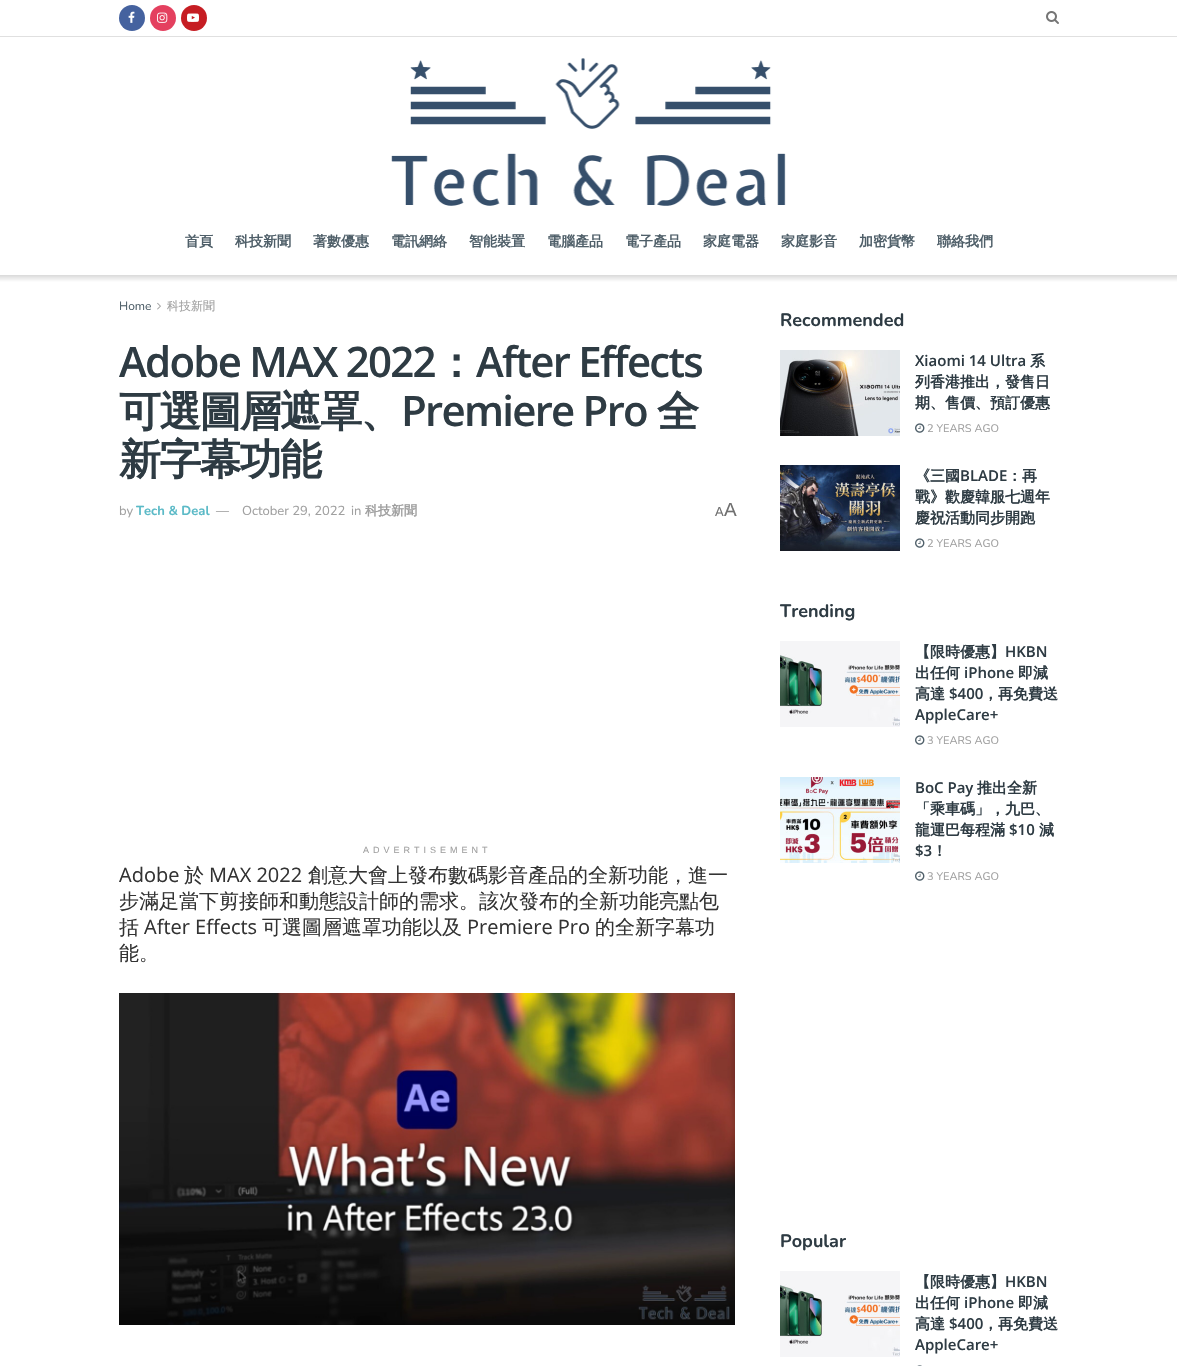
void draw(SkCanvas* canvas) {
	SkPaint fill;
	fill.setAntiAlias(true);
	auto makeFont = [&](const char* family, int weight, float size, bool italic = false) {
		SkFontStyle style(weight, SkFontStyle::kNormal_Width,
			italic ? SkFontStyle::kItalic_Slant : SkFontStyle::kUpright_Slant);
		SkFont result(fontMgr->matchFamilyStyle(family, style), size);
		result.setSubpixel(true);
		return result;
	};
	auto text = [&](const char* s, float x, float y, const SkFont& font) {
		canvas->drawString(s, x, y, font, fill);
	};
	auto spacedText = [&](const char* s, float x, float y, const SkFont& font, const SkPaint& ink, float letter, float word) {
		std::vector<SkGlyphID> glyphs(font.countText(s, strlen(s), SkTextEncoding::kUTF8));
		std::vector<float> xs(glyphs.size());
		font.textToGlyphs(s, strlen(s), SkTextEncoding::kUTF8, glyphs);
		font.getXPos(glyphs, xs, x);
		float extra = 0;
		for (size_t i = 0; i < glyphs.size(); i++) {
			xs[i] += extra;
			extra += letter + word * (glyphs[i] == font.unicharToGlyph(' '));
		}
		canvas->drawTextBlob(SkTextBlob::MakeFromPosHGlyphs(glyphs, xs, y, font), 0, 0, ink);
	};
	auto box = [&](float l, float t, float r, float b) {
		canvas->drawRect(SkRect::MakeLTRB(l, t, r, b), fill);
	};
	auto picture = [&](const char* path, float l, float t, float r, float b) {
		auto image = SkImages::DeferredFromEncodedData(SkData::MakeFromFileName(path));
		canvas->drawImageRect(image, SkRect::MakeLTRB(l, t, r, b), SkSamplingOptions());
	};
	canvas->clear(0xFFFFFFFF);
	fill.setColor(0xFFE0E0E0);
	box(0, 36, 1177, 37);
	fill.setColor(0xFF45629F);
	canvas->drawCircle(132, 18, 13, fill);
	picture("image0.png", 128, 11, 135, 23);
	fill.setColor(0xFFE4405F);
	canvas->drawCircle(163, 18, 13, fill);
	picture("image1.png", 157, 12, 168, 23);
	fill.setColor(0xFFC61D23);
	canvas->drawCircle(194, 18, 13, fill);
	picture("image2.png", 187, 13, 199, 22);
	picture("image3.png", 1046, 11, 1059, 24);
	picture("image4.png", 391, 58, 786, 206);
	{
		const SkColor colors[] = {0xFFD9D9D9, 0xFFFFFFFF};
		const float stops[] = {0, 1};
		const SkPoint ends[] = {{589, 275}, {589, 282}};
		fill.setShader(SkGradientShader::MakeLinear(ends, colors, stops, 2, SkTileMode::kClamp));
		fill.setAlpha(255);
	}
	box(0, 275, 1177, 282);
	picture("image5.png", 157, 302, 161, 310);
	picture("image6.png", 119, 993, 735, 1325);
	picture("image7.png", 780, 350, 900, 436);
	picture("image8.png", 915, 423, 925, 433);
	picture("image9.png", 780, 465, 900, 551);
	picture("image8.png", 915, 538, 925, 548);
	picture("image10.png", 780, 641, 900, 727);
	picture("image8.png", 915, 735, 925, 745);
	picture("image11.png", 780, 777, 900, 863);
	picture("image8.png", 915, 871, 925, 881);
	picture("image10.png", 780, 1271, 900, 1357);
	picture("image12.png", 917, 1365, 922, 1366);
	auto font1 = makeFont("WenQuanYi Zen Hei", 700, 14);
	fill.setShader(nullptr);
	fill.setColor(0xFF4F5F69);
	text("首頁", 185, 246, font1);
	text("科技新聞", 235, 246, font1);
	text("著數優惠", 313, 246, font1);
	text("電訊網絡", 391, 246, font1);
	text("智能裝置", 469, 246, font1);
	text("電腦產品", 547, 246, font1);
	text("電子產品", 625, 246, font1);
	text("家庭電器", 703, 246, font1);
	text("家庭影音", 781, 246, font1);
	text("加密貨幣", 859, 246, font1);
	text("聯絡我們", 937, 246, font1);
	auto font2 = makeFont("Nunito", 400, 12);
	text("Home", 119, 310, font2);
	auto font3 = makeFont("WenQuanYi Zen Hei", 500, 12);
	fill.setColor(0xFFA0A0A0);
	text("科技新聞", 167, 310, font3);
	auto font4 = makeFont("Open Sans", 600, 42);
	fill.setColor(0xFF2E3B43);
	spacedText("Adobe MAX 2022", 119, 377, font4, fill, -1.75f, 0);
	auto font5 = makeFont("WenQuanYi Zen Hei", 700, 42);
	spacedText("：", 435, 377, font5, fill, -1.75f, 0);
	spacedText("After Effects", 476, 377, font4, fill, -1.75f, 0);
	spacedText("可選圖層遮罩、", 119, 426, font5, fill, -1.75f, 0);
	spacedText("Premiere Pro", 401, 426, font4, fill, -1.75f, 0);
	spacedText("全", 657, 426, font5, fill, -1.75f, 0);
	spacedText("新字幕功能", 119, 474, font5, fill, -1.75f, 0);
	auto font6 = makeFont("Nunito", 400, 13);
	fill.setColor(0xFFA0A0A0);
	text("by", 119, 515, font6);
	auto font7 = makeFont("Nunito", 700, 13);
	fill.setColor(0xFF5BBAC7);
	text("Tech & Deal", 136, 515, font7);
	fill.setColor(0xFFA0A0A0);
	text("—", 216, 515, font6);
	text("October 29, 2022", 242, 515, font6);
	text("in", 351, 515, font6);
	auto font8 = makeFont("WenQuanYi Zen Hei", 700, 13);
	text("科技新聞", 365, 515, font8);
	auto font9 = makeFont("Liberation Sans", 400, 13);
	fill.setColor(0xFF707070);
	text("A", 715, 516, font9);
	auto font10 = makeFont("Liberation Sans", 400, 19);
	text("A", 724, 516, font10);
	auto font11 = makeFont("Liberation Sans", 400, 9);
	fill.setColor(0xFFA0A0A0);
	spacedText("ADVERTISEMENT", 363, 853, font11, fill, 4, 0);
	auto font12 = makeFont("Open Sans", 400, 20);
	fill.setColor(0xFF333333);
	text("Adobe", 119, 882, font12);
	auto font13 = makeFont("WenQuanYi Zen Hei", 500, 20);
	text("於", 184, 882, font13);
	text("MAX 2022", 209, 882, font12);
	text("創意大會上發布數碼影音產品的全新功能，進一", 308, 882, font13);
	text("步滿足當下剪接師和動態設計師的需求。該次發布的全新功能亮點包", 119, 908, font13);
	text("括", 119, 934, font13);
	text("After Effects", 144, 934, font12);
	text("可選圖層遮罩功能以及", 262, 934, font13);
	text("Premiere Pro", 467, 934, font12);
	text("的全新字幕功", 595, 934, font13);
	text("能。", 119, 960, font13);
	auto font14 = makeFont("Nunito", 700, 18);
	fill.setColor(0xFF2E3B43);
	text("Recommended", 780, 326, font14);
	auto font15 = makeFont("Open Sans", 600, 15);
	text("Xiaomi 14 Ultra", 915, 366, font15);
	auto font16 = makeFont("WenQuanYi Zen Hei", 700, 15);
	text("系", 1030, 366, font16);
	text("列香港推出，發售日", 915, 387, font16);
	text("期、售價、預訂優惠", 915, 408, font16);
	auto font17 = makeFont("Nunito", 400, 11);
	fill.setColor(0xFFA0A0A0);
	text("2 YEARS AGO", 927, 432, font17);
	fill.setColor(0xFF2E3B43);
	text("《三國", 915, 481, font16);
	text("BLADE", 960, 481, font15);
	text("：再", 1007, 481, font16);
	text("戰》歡慶韓服七週年", 915, 502, font16);
	text("慶祝活動同步開跑", 915, 523, font16);
	fill.setColor(0xFFA0A0A0);
	text("2 YEARS AGO", 927, 547, font17);
	fill.setColor(0xFF2E3B43);
	text("Trending", 780, 617, font14);
	text("【限時優惠】", 915, 657, font16);
	text("HKBN", 1005, 657, font15);
	text("出任何", 915, 678, font16);
	text("iPhone", 964, 678, font15);
	text("即減", 1018, 678, font16);
	text("高達", 915, 699, font16);
	text("$400", 949, 699, font15);
	text("，再免費送", 983, 699, font16);
	text("AppleCare+", 915, 720, font15);
	fill.setColor(0xFFA0A0A0);
	text("3 YEARS AGO", 927, 744, font17);
	fill.setColor(0xFF2E3B43);
	text("BoC Pay", 915, 793, font15);
	text("推出全新", 977, 793, font16);
	text("「乘車碼」，九巴、", 915, 814, font16);
	text("龍運巴每程滿", 915, 835, font16);
	text("$10", 1009, 835, font15);
	text("減", 1039, 835, font16);
	text("$3", 915, 856, font15);
	text("！", 932, 856, font16);
	fill.setColor(0xFFA0A0A0);
	text("3 YEARS AGO", 927, 880, font17);
	fill.setColor(0xFF2E3B43);
	text("Popular", 780, 1247, font14);
	text("【限時優惠】", 915, 1287, font16);
	text("HKBN", 1005, 1287, font15);
	text("出任何", 915, 1308, font16);
	text("iPhone", 964, 1308, font15);
	text("即減", 1018, 1308, font16);
	text("高達", 915, 1329, font16);
	text("$400", 949, 1329, font15);
	text("，再免費送", 983, 1329, font16);
	text("AppleCare+", 915, 1350, font15);
}
